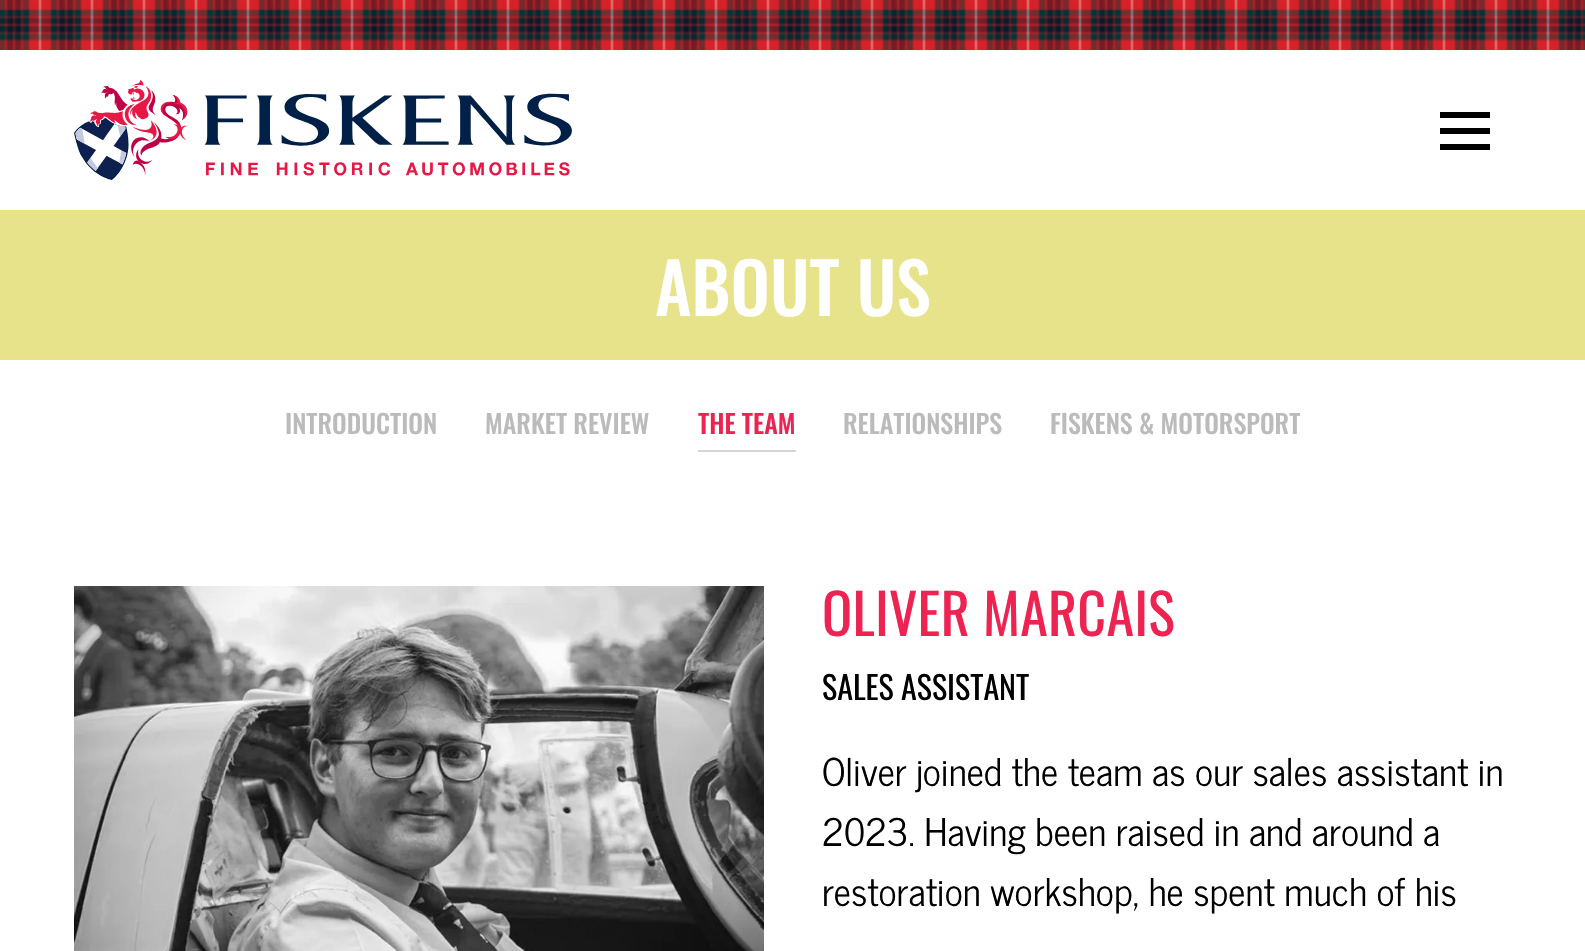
void draw(SkCanvas* canvas) {
	SkPaint fill;
	fill.setAntiAlias(true);
	auto makeFont = [&](const char* family, int weight, float size, bool italic = false) {
		SkFontStyle style(weight, SkFontStyle::kNormal_Width,
			italic ? SkFontStyle::kItalic_Slant : SkFontStyle::kUpright_Slant);
		SkFont result(fontMgr->matchFamilyStyle(family, style), size);
		result.setSubpixel(true);
		return result;
	};
	auto text = [&](const char* s, float x, float y, const SkFont& font) {
		canvas->drawString(s, x, y, font, fill);
	};
	auto spacedText = [&](const char* s, float x, float y, const SkFont& font, const SkPaint& ink, float letter, float word) {
		std::vector<SkGlyphID> glyphs(font.countText(s, strlen(s), SkTextEncoding::kUTF8));
		std::vector<float> xs(glyphs.size());
		font.textToGlyphs(s, strlen(s), SkTextEncoding::kUTF8, glyphs);
		font.getXPos(glyphs, xs, x);
		float extra = 0;
		for (size_t i = 0; i < glyphs.size(); i++) {
			xs[i] += extra;
			extra += letter + word * (glyphs[i] == font.unicharToGlyph(' '));
		}
		canvas->drawTextBlob(SkTextBlob::MakeFromPosHGlyphs(glyphs, xs, y, font), 0, 0, ink);
	};
	auto box = [&](float l, float t, float r, float b) {
		canvas->drawRect(SkRect::MakeLTRB(l, t, r, b), fill);
	};
	auto picture = [&](const char* path, float l, float t, float r, float b) {
		auto image = SkImages::DeferredFromEncodedData(SkData::MakeFromFileName(path));
		canvas->drawImageRect(image, SkRect::MakeLTRB(l, t, r, b), SkSamplingOptions());
	};
	canvas->clear(0xFFFFFFFF);
	picture("image0.png", 0, 0, 1585, 50);
	picture("image1.png", 74, 80, 572, 180);
	fill.setColor(0xFF000000);
	box(1440, 112, 1490, 118);
	box(1440, 128, 1490, 134);
	box(1440, 144, 1490, 150);
	fill.setColor(0xFFE6E38B);
	box(0, 210, 1585, 360);
	fill.setColor(0xFFD5D5D5);
	box(698, 450, 796, 452);
	picture("image2.png", 74, 586, 764, 951);
	auto font1 = makeFont("Oswald", 500, 70);
	fill.setColor(0xFFFFFFFF);
	text("ABOUT US", 655, 316, font1);
	auto font2 = makeFont("Oswald", 500, 26);
	fill.setColor(0xFFBBBBBB);
	text("INTRODUCTION", 285, 434, font2);
	text("MARKET REVIEW", 485, 434, font2);
	fill.setColor(0xFFED2351);
	text("THE TEAM", 698, 434, font2);
	fill.setColor(0xFFBBBBBB);
	text("RELATIONSHIPS", 843, 434, font2);
	text("FISKENS & MOTORSPORT", 1050, 434, font2);
	auto font3 = makeFont("Oswald", 400, 56);
	fill.setColor(0xFFED2351);
	spacedText("OLIVER MARCAIS", 822, 636, font3, fill, 0.25f, 0);
	auto font4 = makeFont("Oswald", 400, 32);
	fill.setColor(0xFF000000);
	text("SALES ASSISTANT", 822, 700, font4);
	auto font5 = makeFont("News Cycle", 400, 38);
	text("Oliver joined the team as our sales assistant in", 822, 786, font5);
	text("2023. Having been raised in and around a", 822, 846, font5);
	text("restoration workshop, he spent much of his", 822, 906, font5);
}
